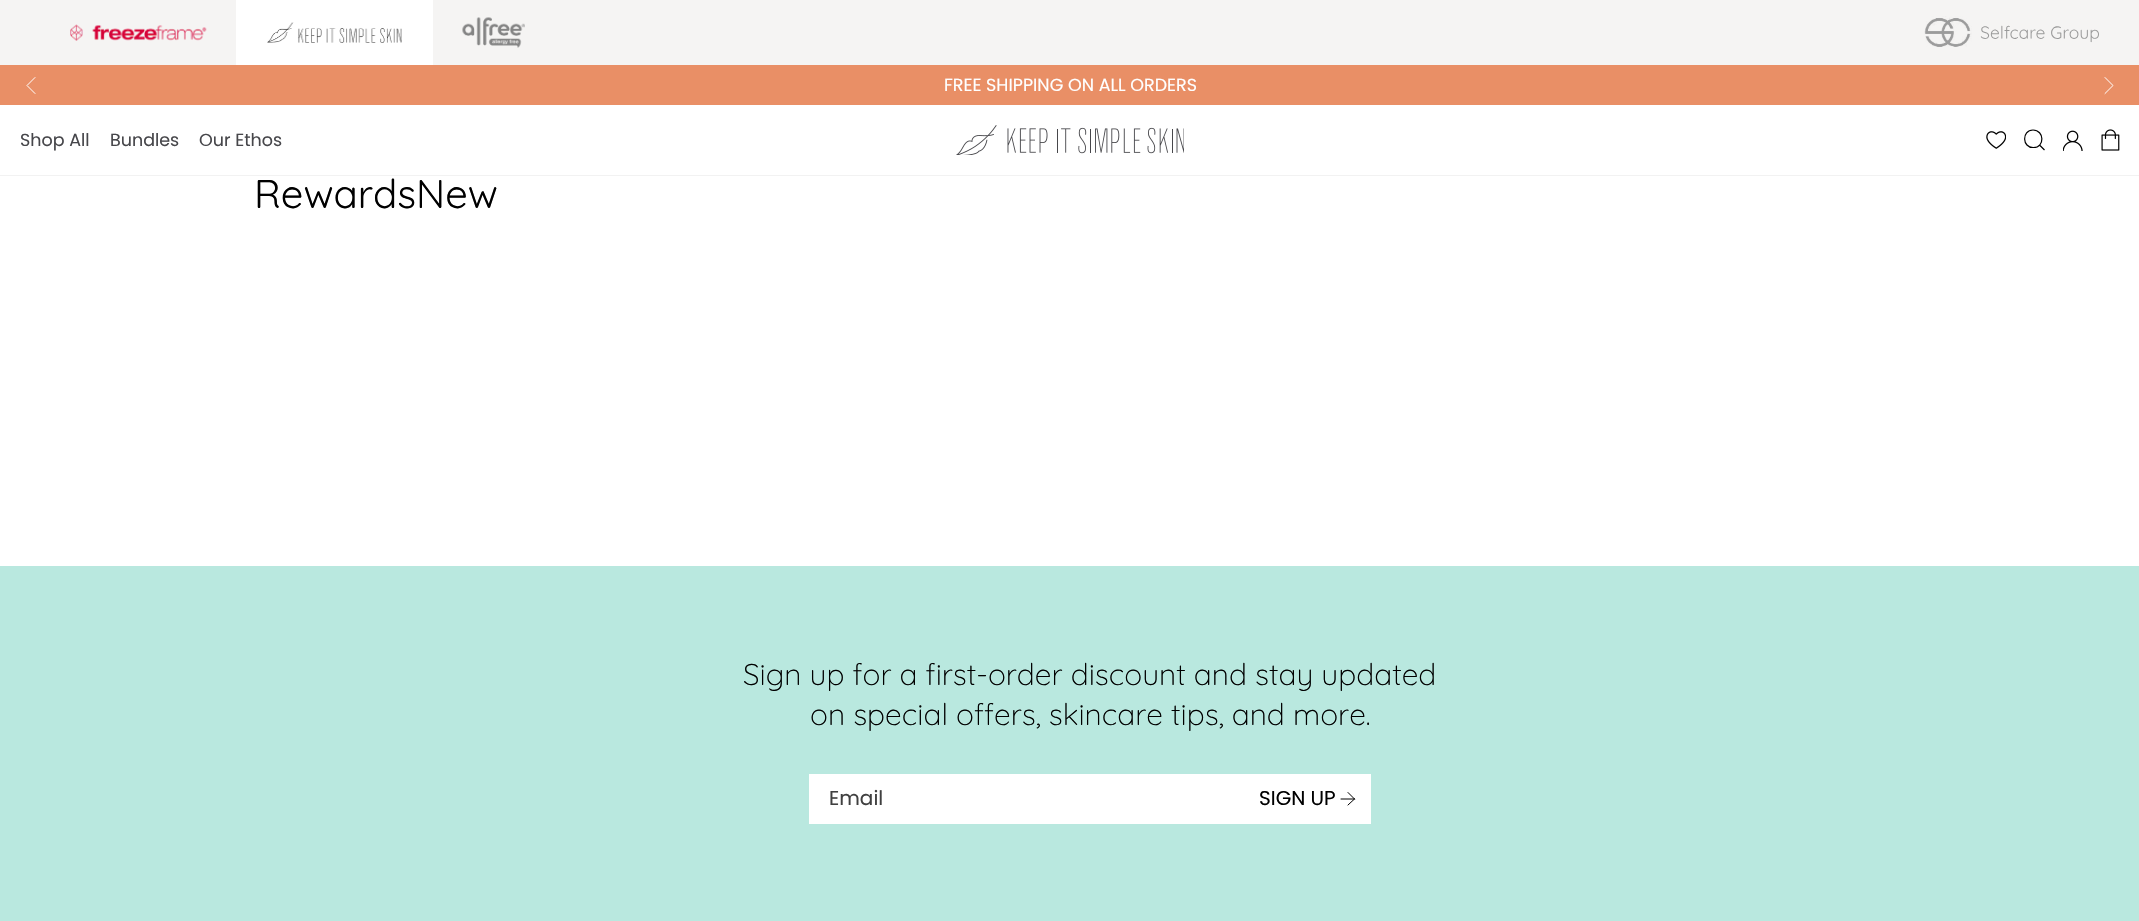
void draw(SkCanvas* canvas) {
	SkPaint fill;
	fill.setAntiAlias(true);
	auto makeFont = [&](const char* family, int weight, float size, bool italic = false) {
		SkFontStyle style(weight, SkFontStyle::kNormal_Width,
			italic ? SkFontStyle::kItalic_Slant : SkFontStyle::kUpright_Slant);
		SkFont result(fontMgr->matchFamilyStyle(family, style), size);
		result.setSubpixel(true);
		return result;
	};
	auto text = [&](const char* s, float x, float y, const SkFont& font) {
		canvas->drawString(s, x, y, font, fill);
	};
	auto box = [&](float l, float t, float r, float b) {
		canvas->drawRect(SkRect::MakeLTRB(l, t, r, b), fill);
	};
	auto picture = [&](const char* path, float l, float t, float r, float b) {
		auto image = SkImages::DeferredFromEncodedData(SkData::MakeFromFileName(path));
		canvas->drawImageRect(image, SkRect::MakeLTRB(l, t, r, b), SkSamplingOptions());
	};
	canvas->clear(0xFFFFFFFF);
	fill.setColor(0xFFF5F4F3);
	box(0, 0, 2139, 65);
	picture("image0.png", 70, 24, 207, 41);
	fill.setColor(0xFFFFFFFF);
	box(236, 0, 433, 65);
	picture("image1.png", 267, 22, 402, 43);
	picture("image2.png", 462, 17, 525, 48);
	picture("image3.png", 1924, 16, 2099, 47);
	fill.setColor(0xFFE98F66);
	box(0, 65, 2139, 105);
	fill.setStyle(SkPaint::kStroke_Style);
	fill.setStrokeWidth(1);
	fill.setStrokeCap(SkPaint::kRound_Cap);
	fill.setStrokeJoin(SkPaint::kRound_Join);
	fill.setColor(0xFFFFFFFF);
	canvas->drawPath(SkPathBuilder().moveTo(35, 77.5f).lineTo(27, 85.5f).lineTo(35, 93.5f).detach(), fill);
	canvas->drawPath(SkPathBuilder().moveTo(2105, 77.5f).lineTo(2113, 85.5f).lineTo(2105, 93.5f).detach(), fill);
	picture("image4.png", 956, 125, 1184, 155);
	picture("image5.png", 1986, 131, 2006, 149);
	fill.setStrokeWidth(1.2f);
	fill.setStrokeCap(SkPaint::kButt_Cap);
	fill.setStrokeJoin(SkPaint::kMiter_Join);
	fill.setColor(0xFF000000);
	canvas->drawPath(SkPathBuilder().moveTo(2039.5f, 145).lineTo(2044.5f, 150).moveTo(2033, 130).cubicTo(2044.5f, 130, 2045, 147.5f, 2033.5f, 147.5f).cubicTo(2022, 148, 2021.5f, 130, 2033, 130).close().detach(), fill);
	picture("image6.png", 2063, 130, 2083, 151);
	picture("image7.png", 2101, 129, 2120, 151);
	fill.setStyle(SkPaint::kFill_Style);
	fill.setColor(0xFFF2F2F2);
	box(0, 175, 2139, 176);
	fill.setColor(0xFFB9E8DF);
	box(0, 566, 2139, 921);
	fill.setColor(0xFFFFFFFF);
	box(809, 774, 1371, 824);
	fill.setStyle(SkPaint::kStroke_Style);
	fill.setStrokeWidth(1);
	fill.setStrokeCap(SkPaint::kRound_Cap);
	fill.setStrokeJoin(SkPaint::kRound_Join);
	fill.setColor(0xFF000000);
	canvas->drawPath(SkPathBuilder().moveTo(1341, 799).lineTo(1354.5f, 799).moveTo(1354.5f, 799).lineTo(1348, 792.5f).moveTo(1354.5f, 799).lineTo(1348, 805).detach(), fill);
	auto font1 = makeFont("Poppins", 400, 17.5f);
	fill.setStyle(SkPaint::kFill_Style);
	fill.setColor(0xFFFFFFFF);
	text("FREE SHIPPING ON ALL ORDERS", 944, 91, font1);
	fill.setColor(0xFF47474B);
	text("Shop All", 20, 146, font1);
	text("Bundles", 110, 146, font1);
	text("Our Ethos", 199, 146, font1);
	auto font2 = makeFont("Quicksand", 400, 40);
	fill.setColor(0xFF000000);
	text("RewardsNew", 254, 208, font2);
	auto font3 = makeFont("Quicksand", 300, 30);
	text("Sign up for a first-order discount and stay updated", 743, 685, font3);
	text("on special offers, skincare tips, and more.", 810, 725, font3);
	auto font4 = makeFont("Poppins", 400, 20);
	fill.setColor(0xFF404040);
	text("Email", 829, 805, font4);
	fill.setColor(0xFF000000);
	text("SIGN UP", 1259, 805, font4);
}
